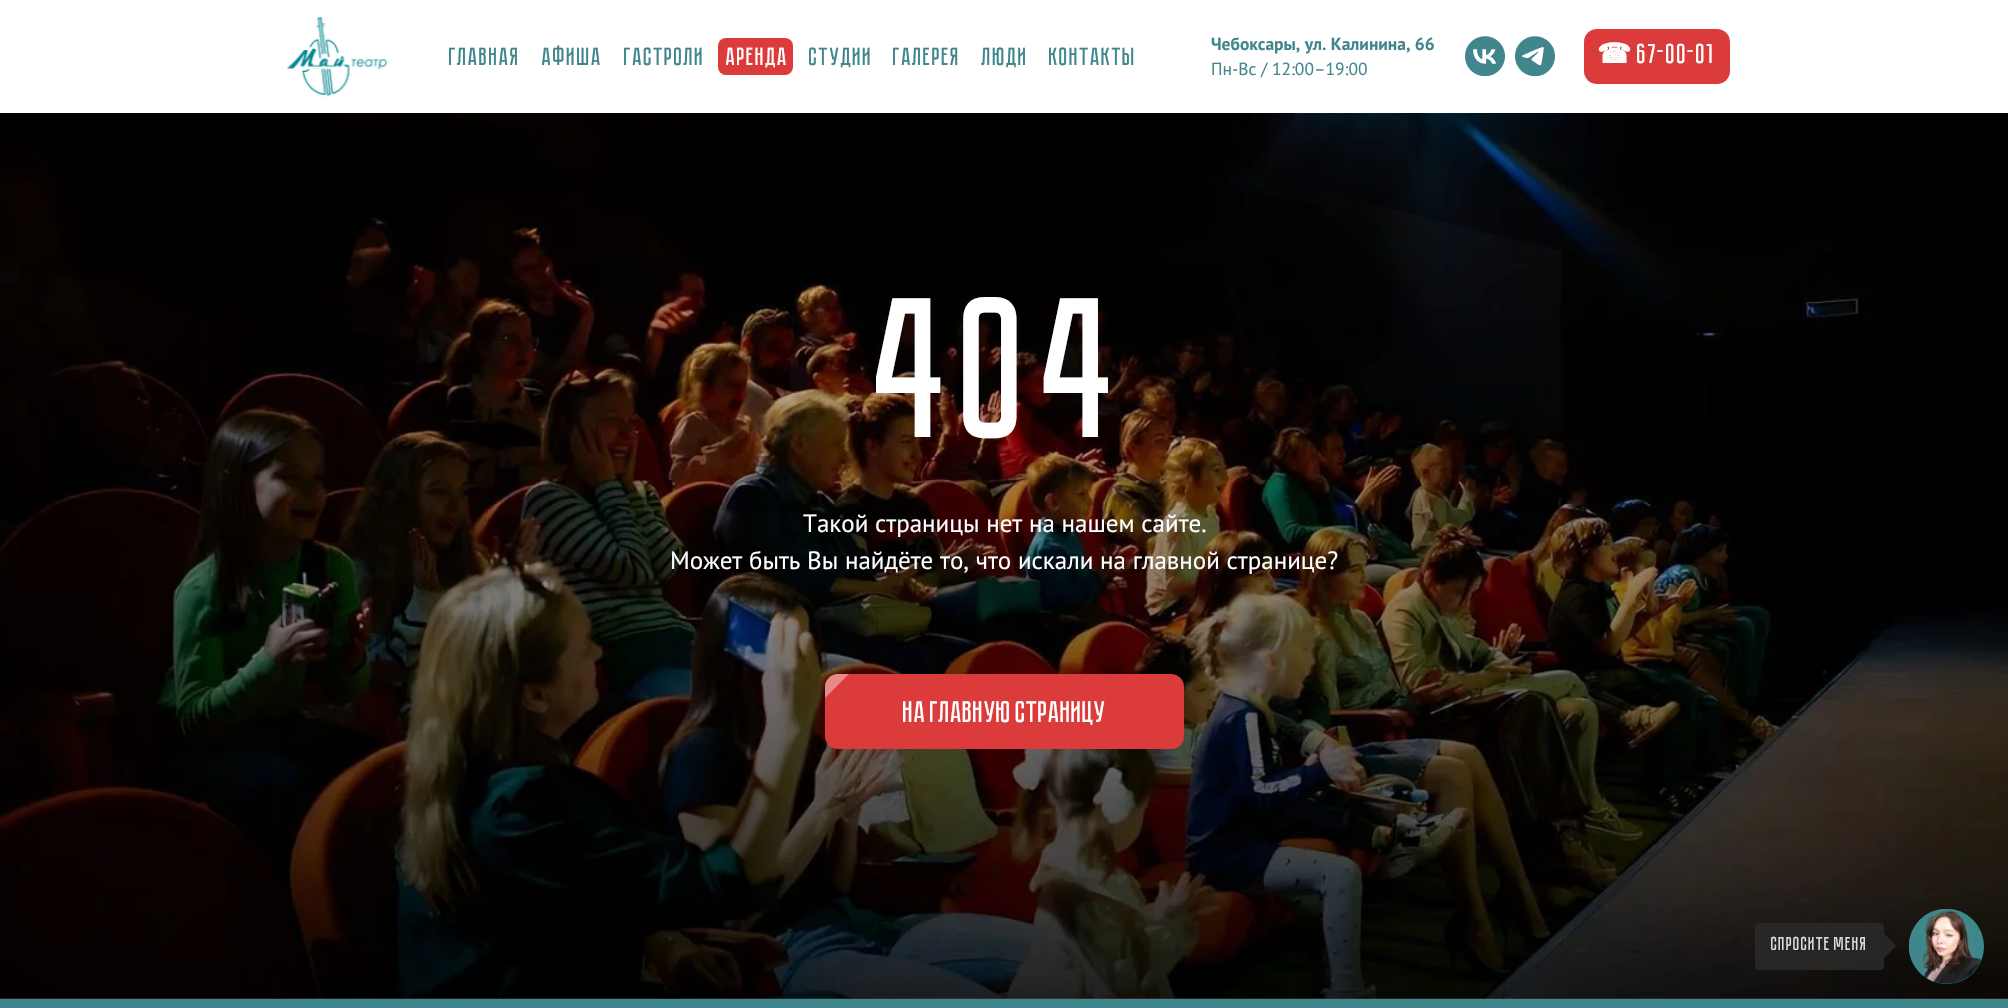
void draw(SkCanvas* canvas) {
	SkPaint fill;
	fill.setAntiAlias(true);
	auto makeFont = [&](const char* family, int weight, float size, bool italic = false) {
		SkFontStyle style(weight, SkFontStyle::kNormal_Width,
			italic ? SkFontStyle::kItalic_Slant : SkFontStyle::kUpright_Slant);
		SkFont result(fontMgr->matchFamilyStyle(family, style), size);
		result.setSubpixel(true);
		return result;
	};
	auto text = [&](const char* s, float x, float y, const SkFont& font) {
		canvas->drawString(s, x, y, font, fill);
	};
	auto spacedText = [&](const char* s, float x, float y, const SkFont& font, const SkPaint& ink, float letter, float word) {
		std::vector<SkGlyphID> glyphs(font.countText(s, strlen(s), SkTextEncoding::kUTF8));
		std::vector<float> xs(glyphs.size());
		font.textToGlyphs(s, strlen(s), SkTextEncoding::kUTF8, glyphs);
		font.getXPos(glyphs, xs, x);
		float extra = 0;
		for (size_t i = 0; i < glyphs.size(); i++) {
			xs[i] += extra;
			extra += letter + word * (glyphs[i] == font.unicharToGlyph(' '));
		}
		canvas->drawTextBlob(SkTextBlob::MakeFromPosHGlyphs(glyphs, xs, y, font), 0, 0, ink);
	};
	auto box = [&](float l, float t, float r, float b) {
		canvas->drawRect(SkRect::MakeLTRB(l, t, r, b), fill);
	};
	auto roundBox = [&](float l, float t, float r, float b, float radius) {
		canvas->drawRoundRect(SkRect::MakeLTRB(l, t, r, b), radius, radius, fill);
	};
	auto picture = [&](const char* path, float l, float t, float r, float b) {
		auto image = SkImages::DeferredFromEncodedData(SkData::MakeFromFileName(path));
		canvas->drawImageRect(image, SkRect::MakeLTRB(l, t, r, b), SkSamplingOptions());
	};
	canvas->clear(0xFFFFFFFF);
	picture("image0.png", 287, 16, 389, 97);
	fill.setColor(0xFFDB3B3B);
	roundBox(718, 38, 793, 75, 8);
	picture("image1.png", 1465, 36, 1505, 76);
	picture("image2.png", 1515, 36, 1555, 76);
	roundBox(1584, 29, 1730, 84, 13);
	picture("image3.png", 0, 998, 2008, 999);
	picture("image4.png", 0, 113, 2008, 999);
	roundBox(825, 674, 1184, 749, 13);
	{
		const SkColor colors[] = {0x1AFFFFFF, 0x66FFFFFF};
		const float stops[] = {0, 1};
		const SkPoint ends[] = {{757, 711}, {813, 711}};
		fill.setShader(SkGradientShader::MakeLinear(ends, colors, stops, 2, SkTileMode::kClamp));
		fill.setAlpha(255);
	}
	canvas->drawPath(SkPathBuilder().moveTo(838, 674).lineTo(849, 674).lineTo(825, 698).lineTo(825, 687).cubicTo(825, 680, 831, 674, 838, 674).close().detach(), fill);
	fill.setShader(nullptr);
	fill.setColor(0xD9292929);
	roundBox(1755, 923, 1884, 970, 4);
	canvas->drawPath(SkPathBuilder().moveTo(1884, 958.5f).lineTo(1884, 933.5f).lineTo(1896, 946).close().detach(), fill);
	fill.setColor(0xFF00999A);
	canvas->drawCircle(1946.5f, 946.5f, 37.5f, fill);
	picture("image5.png", 1908, 908, 1984, 984);
	fill.setColor(0xFF40868C);
	box(0, 999, 2008, 1008);
	auto font1 = makeFont("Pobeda", 700, 25);
	text("Главная", 449, 65, font1);
	text("Афиша", 542, 65, font1);
	text("Гастроли", 624, 65, font1);
	auto font2 = makeFont("PT Sans", 700, 17.5f);
	text("Чебоксары, ул. Калинина, 66", 1211, 50, font2);
	auto font3 = makeFont("DejaVu Sans", 700, 27.5f);
	fill.setColor(0xFFFFFFFF);
	text("☎", 1597, 63, font3);
	auto font4 = makeFont("Pobeda", 700, 27.5f);
	text("67-00-01", 1637, 63, font4);
	text("Аренда", 726, 65, font1);
	fill.setColor(0xFF40868C);
	text("Студии", 809, 65, font1);
	text("ГалереЯ", 893, 65, font1);
	text("Люди", 982, 65, font1);
	text("Контакты", 1049, 65, font1);
	auto font5 = makeFont("PT Sans", 400, 17.5f);
	text("Пн-Вс / 12:00–19:00", 1211, 75, font5);
	auto font6 = makeFont("Pobeda", 700, 200);
	fill.setColor(0xFFFFFFFF);
	spacedText("404", 876, 437, font6, fill, 1, 0);
	auto font7 = makeFont("PT Sans", 400, 25);
	text("Такой страницы нет на нашем сайте.", 803, 532, font7);
	text("Может быть Вы найдёте то, что искали на главной странице?", 670, 569, font7);
	auto font8 = makeFont("Pobeda", 700, 30);
	spacedText("НА ГЛАВНУЮ СТРАНИЦУ", 903, 722, font8, fill, -1.25f, 0);
	auto font9 = makeFont("Pobeda", 700, 18.75f);
	fill.setColor(0xFFDEDEDE);
	text("Спросите меня", 1771, 950, font9);
}
